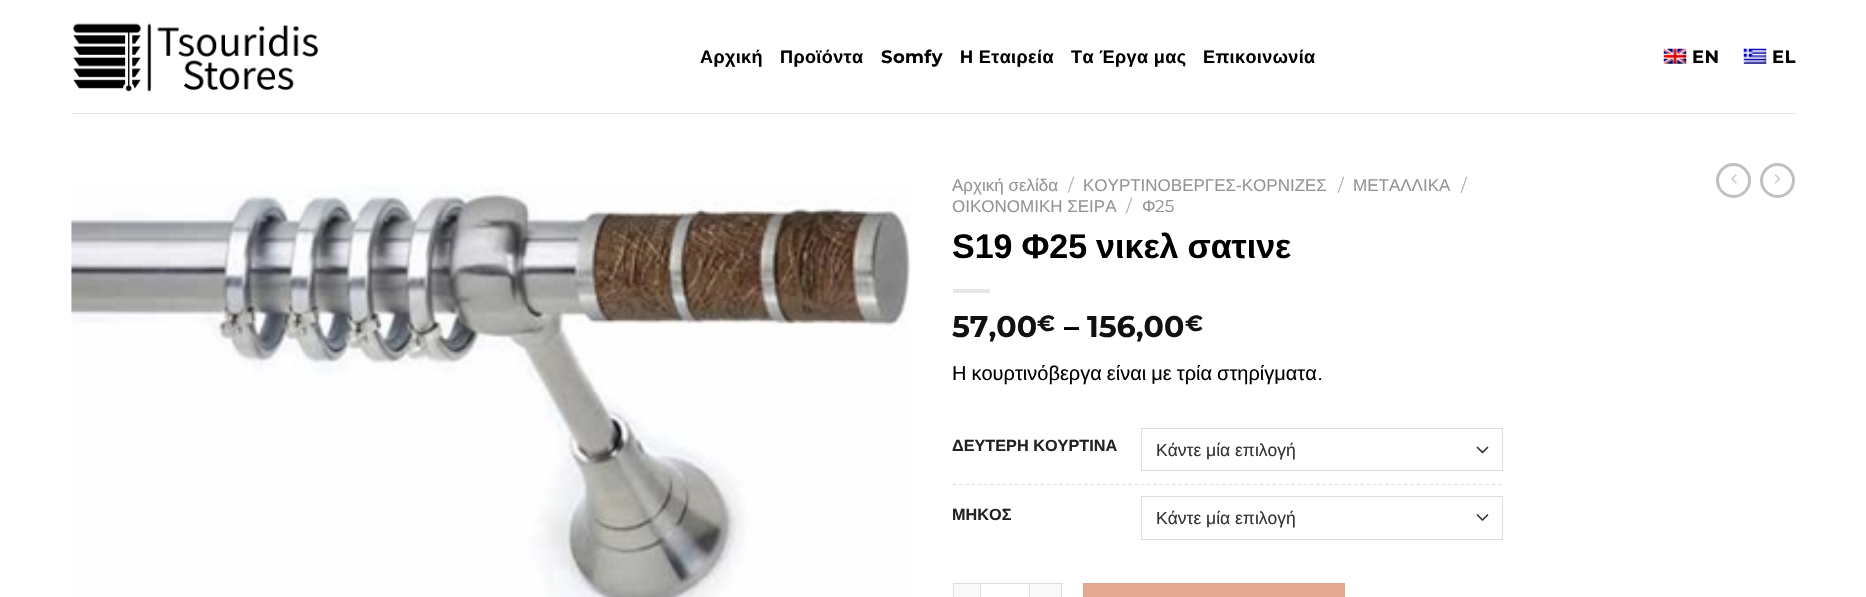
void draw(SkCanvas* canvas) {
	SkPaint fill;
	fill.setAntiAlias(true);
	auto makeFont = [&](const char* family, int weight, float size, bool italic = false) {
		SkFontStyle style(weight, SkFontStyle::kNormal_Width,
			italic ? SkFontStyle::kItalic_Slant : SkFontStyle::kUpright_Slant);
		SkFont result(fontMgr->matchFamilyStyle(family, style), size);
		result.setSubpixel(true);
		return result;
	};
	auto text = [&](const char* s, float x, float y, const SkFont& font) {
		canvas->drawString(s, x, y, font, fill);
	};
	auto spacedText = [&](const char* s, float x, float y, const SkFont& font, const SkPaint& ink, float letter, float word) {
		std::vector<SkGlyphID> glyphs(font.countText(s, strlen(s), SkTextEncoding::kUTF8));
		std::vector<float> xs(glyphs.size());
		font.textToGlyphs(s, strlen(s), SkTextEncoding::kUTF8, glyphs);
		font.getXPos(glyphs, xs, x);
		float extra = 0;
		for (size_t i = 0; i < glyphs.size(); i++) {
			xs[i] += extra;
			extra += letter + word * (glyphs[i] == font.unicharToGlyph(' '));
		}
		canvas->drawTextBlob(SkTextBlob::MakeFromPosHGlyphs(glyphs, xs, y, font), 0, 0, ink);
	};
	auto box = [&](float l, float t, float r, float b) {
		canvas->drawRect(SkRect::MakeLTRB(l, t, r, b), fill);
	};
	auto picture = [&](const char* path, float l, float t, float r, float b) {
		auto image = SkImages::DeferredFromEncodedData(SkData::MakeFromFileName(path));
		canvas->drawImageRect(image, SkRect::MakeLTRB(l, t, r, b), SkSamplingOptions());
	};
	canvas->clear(0xFFFFFFFF);
	picture("image0.png", 73, 23, 319, 92);
	picture("image1.png", 1663, 48, 1687, 64);
	picture("image2.png", 1743, 48, 1767, 64);
	fill.setColor(0xFFE6E6E6);
	box(71, 113, 1796, 114);
	picture("image3.png", 71, 185, 911, 597);
	box(953, 289, 990, 293);
	fill.setStyle(SkPaint::kStroke_Style);
	fill.setStrokeWidth(1.7f);
	fill.setStrokeCap(SkPaint::kRound_Cap);
	fill.setStrokeJoin(SkPaint::kRound_Join);
	fill.setColor(0xFF333333);
	canvas->drawPath(SkPathBuilder().moveTo(1477.5f, 447.5f).lineTo(1482.5f, 452.5f).lineTo(1487.5f, 447.5f).detach(), fill);
	fill.setStrokeWidth(1);
	fill.setStrokeCap(SkPaint::kButt_Cap);
	fill.setStrokeJoin(SkPaint::kMiter_Join);
	fill.setColor(0xFFDDDDDD);
	canvas->drawRect(SkRect::MakeLTRB(1141.5f, 428.5f, 1502.5f, 470.5f), fill);
	fill.setStrokeWidth(1.2f);
	fill.setPathEffect(SkDashPathEffect::Make({{3.75f, 2.52f}}, 0));
	canvas->drawPath(SkPathBuilder().moveTo(952.5f, 484.5f).lineTo(1502.5f, 484.5f).detach(), fill);
	fill.setPathEffect(nullptr);
	fill.setStrokeWidth(1.7f);
	fill.setStrokeCap(SkPaint::kRound_Cap);
	fill.setStrokeJoin(SkPaint::kRound_Join);
	fill.setColor(0xFF333333);
	canvas->drawPath(SkPathBuilder().moveTo(1477.5f, 515).lineTo(1482.5f, 520).lineTo(1487.5f, 515).detach(), fill);
	fill.setStrokeWidth(1);
	fill.setStrokeCap(SkPaint::kButt_Cap);
	fill.setStrokeJoin(SkPaint::kMiter_Join);
	fill.setColor(0xFFDDDDDD);
	canvas->drawRect(SkRect::MakeLTRB(1141.5f, 496.5f, 1502.5f, 539.5f), fill);
	fill.setStyle(SkPaint::kFill_Style);
	fill.setColor(0xFFF9F9F9);
	box(954, 584, 980, 597);
	fill.setColor(0xFFDDDDDD);
	box(953, 583, 980, 584);
	box(953, 583, 954, 597);
	fill.setStyle(SkPaint::kStroke_Style);
	canvas->drawRect(SkRect::MakeLTRB(980.5f, 583.5f, 1029.5f, 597.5f), fill);
	fill.setStyle(SkPaint::kFill_Style);
	fill.setColor(0xFFF9F9F9);
	box(1030, 584, 1063, 597);
	fill.setColor(0xFFDDDDDD);
	box(1030, 583, 1063, 584);
	box(1061, 583, 1062, 597);
	fill.setColor(0xFFE4A893);
	canvas->drawRect(SkRect::MakeLTRB(1083.5f, 583.5f, 1344.5f, 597.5f), fill);
	fill.setStyle(SkPaint::kStroke_Style);
	fill.setColor(0xFFDEA591);
	canvas->drawRect(SkRect::MakeLTRB(1083.5f, 583.5f, 1344.5f, 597.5f), fill);
	fill.setStrokeWidth(3);
	fill.setColor(0xFFC0C0C0);
	canvas->drawCircle(1733.5f, 180.5f, 16, fill);
	picture("image4.png", 1731, 174, 1737, 184);
	canvas->drawCircle(1777.5f, 180.5f, 16, fill);
	picture("image5.png", 1775, 174, 1781, 184);
	auto font1 = makeFont("Liberation Sans", 700, 18);
	fill.setStyle(SkPaint::kFill_Style);
	fill.setColor(0xFF000000);
	spacedText("Αρχική", 700, 63, font1, fill, 0.4f, 0);
	spacedText("Προϊόντα", 780, 63, font1, fill, 0.4f, 0);
	auto font2 = makeFont("Montserrat", 700, 18);
	spacedText("Somfy", 881, 63, font2, fill, 0.4f, 0);
	spacedText("Η Εταιρεία", 960, 63, font1, fill, 0.4f, 0);
	spacedText("Τα Έργα μας", 1071, 63, font1, fill, 0.4f, 0);
	spacedText("Επικοινωνία", 1203, 63, font1, fill, 0.4f, 0);
	spacedText("EN", 1692, 63, font2, fill, 0.4f, 0);
	spacedText("EL", 1772, 63, font2, fill, 0.4f, 0);
	auto font3 = makeFont("Liberation Sans", 400, 17);
	fill.setColor(0xFF949494);
	text("Αρχική σελίδα", 952, 191, font3);
	auto font4 = makeFont("Montserrat", 400, 17);
	fill.setColor(0xFFB2B2B2);
	text("/", 1068, 191, font4);
	fill.setColor(0xFF949494);
	text("ΚΟΥΡΤΙΝΟΒΕΡΓΕΣ-ΚΟΡΝΙΖΕΣ", 1083, 191, font3);
	fill.setColor(0xFFB2B2B2);
	text("/", 1338, 191, font4);
	fill.setColor(0xFF949494);
	text("ΜΕΤΑΛΛΙΚΑ", 1353, 191, font3);
	fill.setColor(0xFFB2B2B2);
	text("/", 1461, 191, font4);
	fill.setColor(0xFF949494);
	text("ΟΙΚΟΝΟΜΙΚΗ ΣΕΙΡΑ", 952, 212, font3);
	fill.setColor(0xFFB2B2B2);
	text("/", 1126, 212, font4);
	fill.setColor(0xFF949494);
	text("Φ", 1142, 212, font3);
	text("25", 1155, 212, font4);
	auto font5 = makeFont("Liberation Sans", 700, 34);
	fill.setColor(0xFF000000);
	spacedText("S19 Φ25 νικελ σατινε", 952, 258, font5, fill, 0, -0.5f);
	auto font6 = makeFont("Montserrat", 700, 30);
	fill.setColor(0xFF111111);
	text("57,00", 952, 337, font6);
	auto font7 = makeFont("Montserrat", 700, 22);
	text("€", 1037, 331, font7);
	fill.setColor(0xFF000000);
	text("–", 1064, 337, font6);
	fill.setColor(0xFF111111);
	text("156,00", 1087, 337, font6);
	text("€", 1185, 331, font7);
	auto font8 = makeFont("Liberation Sans", 400, 20);
	fill.setColor(0xFF000000);
	spacedText("Η κουρτινόβεργα είναι με τρία στηρίγματα", 952, 380, font8, fill, 0, -0.5f);
	auto font9 = makeFont("Montserrat", 400, 20);
	text(".", 1318, 380, font9);
	auto font10 = makeFont("Liberation Sans", 700, 16.25f);
	fill.setColor(0xFF222222);
	text("ΔΕΥΤΕΡΗ ΚΟΥΡΤΙΝΑ", 952, 451, font10);
	auto font11 = makeFont("Liberation Sans", 400, 17.5f);
	fill.setColor(0xFF333333);
	text("Κάντε μία επιλογή", 1156, 456, font11);
	fill.setColor(0xFF222222);
	text("ΜΗΚΟΣ", 952, 520, font10);
	fill.setColor(0xFF333333);
	text("Κάντε μία επιλογή", 1156, 524, font11);
}
